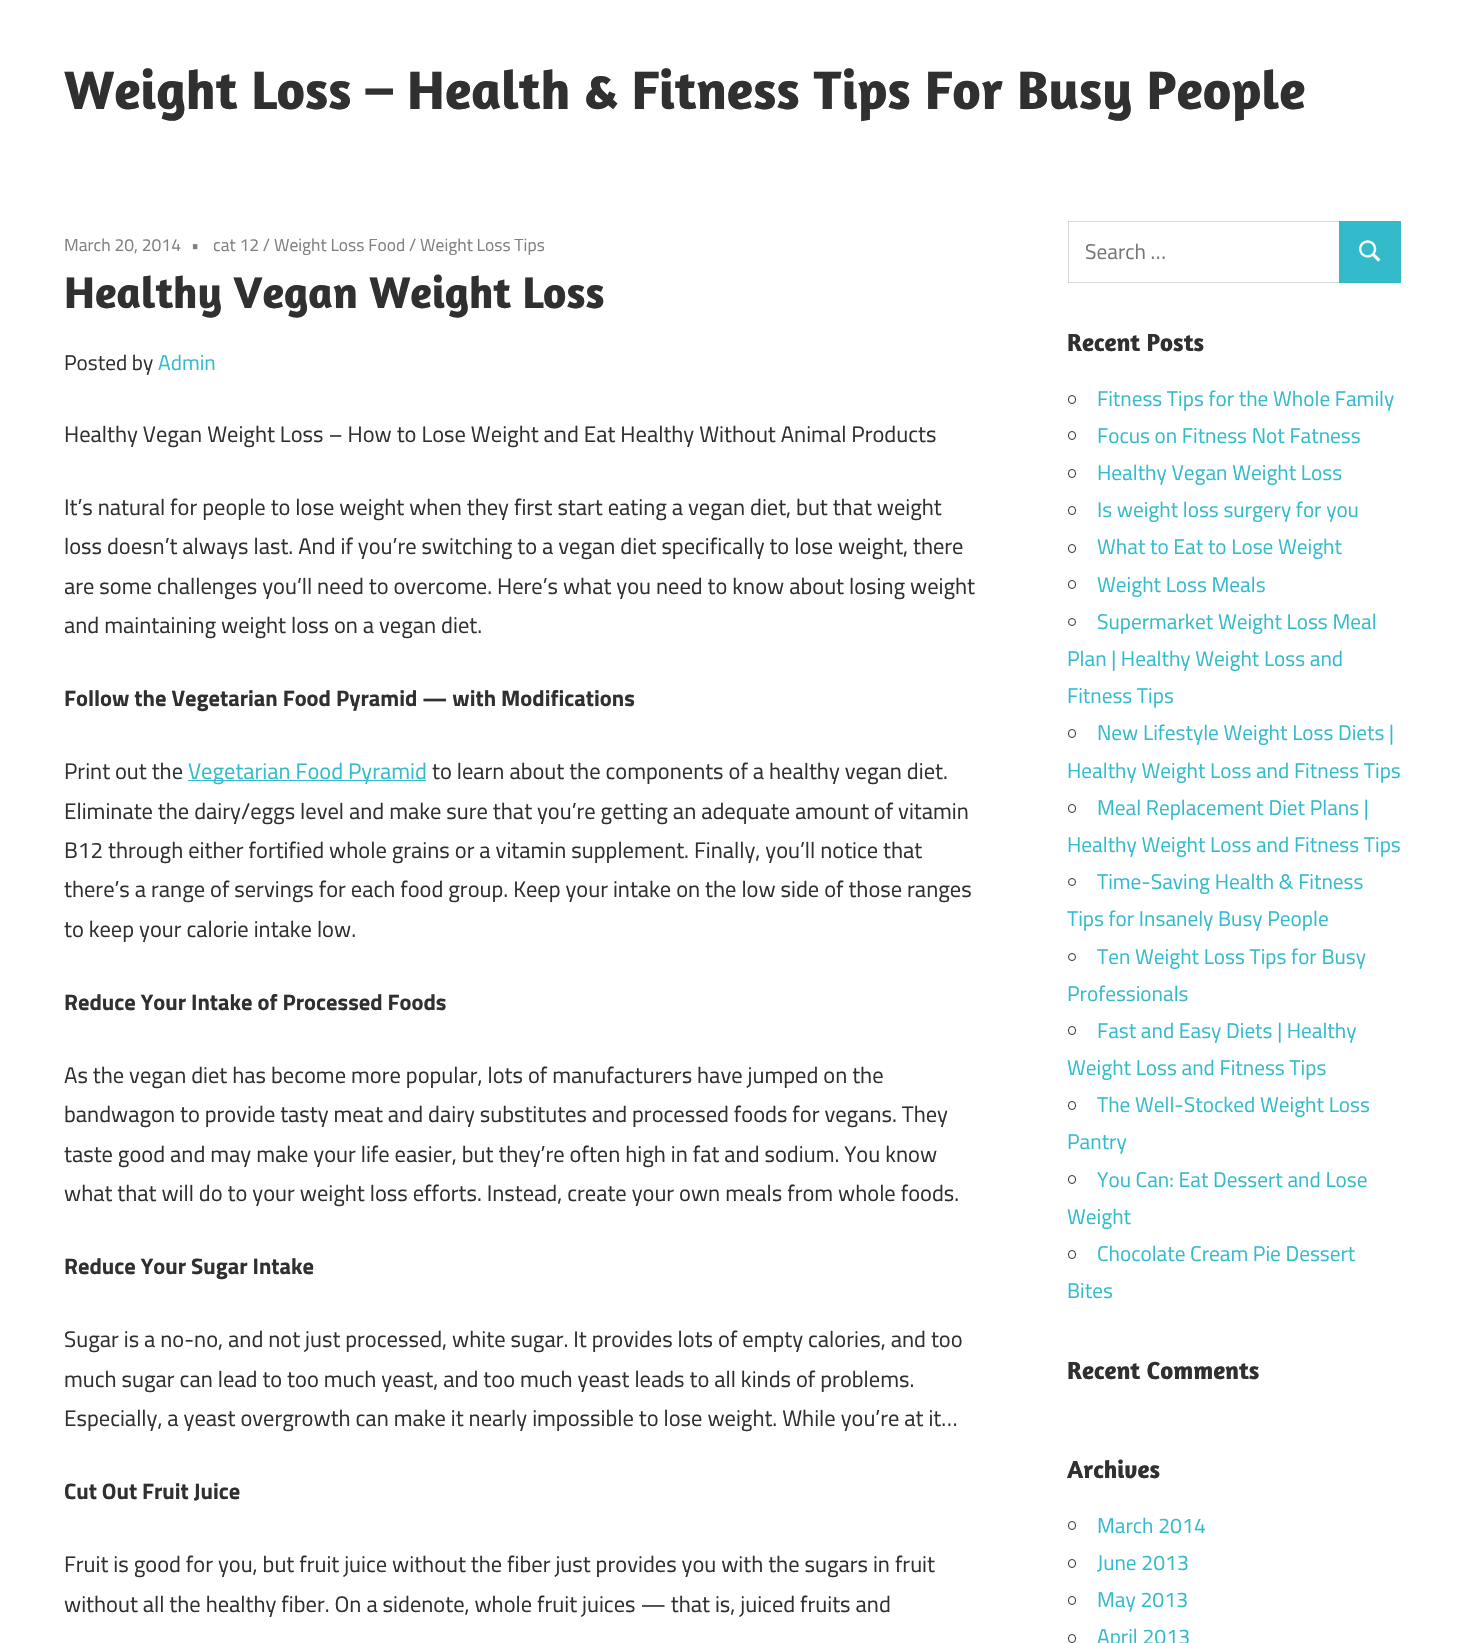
void draw(SkCanvas* canvas) {
	SkPaint fill;
	fill.setAntiAlias(true);
	auto makeFont = [&](const char* family, int weight, float size, bool italic = false) {
		SkFontStyle style(weight, SkFontStyle::kNormal_Width,
			italic ? SkFontStyle::kItalic_Slant : SkFontStyle::kUpright_Slant);
		SkFont result(fontMgr->matchFamilyStyle(family, style), size);
		result.setSubpixel(true);
		return result;
	};
	auto text = [&](const char* s, float x, float y, const SkFont& font) {
		canvas->drawString(s, x, y, font, fill);
	};
	auto box = [&](float l, float t, float r, float b) {
		canvas->drawRect(SkRect::MakeLTRB(l, t, r, b), fill);
	};
	auto picture = [&](const char* path, float l, float t, float r, float b) {
		auto image = SkImages::DeferredFromEncodedData(SkData::MakeFromFileName(path));
		canvas->drawImageRect(image, SkRect::MakeLTRB(l, t, r, b), SkSamplingOptions());
	};
	canvas->clear(0xFFFFFFFF);
	fill.setColor(0xFF33BBCC);
	box(188, 780, 426, 781);
	fill.setStyle(SkPaint::kStroke_Style);
	fill.setStrokeWidth(1);
	fill.setColor(0xFFD9D9D9);
	canvas->drawRect(SkRect::MakeLTRB(1068.5f, 221.5f, 1339.5f, 282.5f), fill);
	fill.setStyle(SkPaint::kFill_Style);
	fill.setColor(0xFF33BBCC);
	box(1339, 221, 1401, 283);
	picture("image0.png", 1359, 240, 1381, 262);
	fill.setStyle(SkPaint::kStroke_Style);
	fill.setColor(0xFF303030);
	canvas->drawRoundRect(SkRect::MakeLTRB(1068.5f, 395.5f, 1075.5f, 403.5f), 3.5f, 3.5f, fill);
	canvas->drawRoundRect(SkRect::MakeLTRB(1068.5f, 431.5f, 1075.5f, 439.5f), 3.5f, 3.5f, fill);
	canvas->drawRoundRect(SkRect::MakeLTRB(1068.5f, 469.5f, 1075.5f, 477.5f), 3.5f, 3.5f, fill);
	canvas->drawRoundRect(SkRect::MakeLTRB(1068.5f, 506.5f, 1075.5f, 514.5f), 3.5f, 3.5f, fill);
	canvas->drawRoundRect(SkRect::MakeLTRB(1068.5f, 544.5f, 1075.5f, 552.5f), 3.5f, 3.5f, fill);
	canvas->drawRoundRect(SkRect::MakeLTRB(1068.5f, 580.5f, 1075.5f, 588.5f), 3.5f, 3.5f, fill);
	canvas->drawCircle(1072, 622, 3.5f, fill);
	canvas->drawRoundRect(SkRect::MakeLTRB(1068.5f, 729.5f, 1075.5f, 737.5f), 3.5f, 3.5f, fill);
	canvas->drawRoundRect(SkRect::MakeLTRB(1068.5f, 804.5f, 1075.5f, 812.5f), 3.5f, 3.5f, fill);
	canvas->drawCircle(1072, 882, 3.5f, fill);
	canvas->drawCircle(1072, 957, 3.5f, fill);
	canvas->drawRoundRect(SkRect::MakeLTRB(1068.5f, 1026.5f, 1075.5f, 1034.5f), 3.5f, 3.5f, fill);
	canvas->drawRoundRect(SkRect::MakeLTRB(1068.5f, 1101.5f, 1075.5f, 1109.5f), 3.5f, 3.5f, fill);
	canvas->drawRoundRect(SkRect::MakeLTRB(1068.5f, 1175.5f, 1075.5f, 1183.5f), 3.5f, 3.5f, fill);
	canvas->drawRoundRect(SkRect::MakeLTRB(1068.5f, 1250.5f, 1075.5f, 1258.5f), 3.5f, 3.5f, fill);
	canvas->drawRoundRect(SkRect::MakeLTRB(1068.5f, 1521.5f, 1075.5f, 1529.5f), 3.5f, 3.5f, fill);
	canvas->drawRoundRect(SkRect::MakeLTRB(1068.5f, 1559.5f, 1075.5f, 1567.5f), 3.5f, 3.5f, fill);
	canvas->drawRoundRect(SkRect::MakeLTRB(1068.5f, 1596.5f, 1075.5f, 1604.5f), 3.5f, 3.5f, fill);
	canvas->drawRoundRect(SkRect::MakeLTRB(1068.5f, 1634.5f, 1075.5f, 1642.5f), 3.5f, 3.5f, fill);
	auto font1 = makeFont("Amaranth", 700, 55);
	fill.setStyle(SkPaint::kFill_Style);
	text("Weight Loss – Health & Fitness Tips For Busy People", 64, 109, font1);
	auto font2 = makeFont("Titillium Web", 400, 17.5f);
	fill.setColor(0xFF808080);
	text("March 20, 2014", 64, 251, font2);
	text("•", 191, 251, font2);
	text("cat 12 / Weight Loss Food / Weight Loss Tips", 213, 251, font2);
	auto font3 = makeFont("Amaranth", 700, 45);
	fill.setColor(0xFF303030);
	text("Healthy Vegan Weight Loss", 64, 308, font3);
	auto font4 = makeFont("Titillium Web", 400, 21.25f);
	text("Posted by", 64, 370, font4);
	fill.setColor(0xFF33BBCC);
	text("Admin", 158, 370, font4);
	auto font5 = makeFont("Titillium Web", 400, 22.5f);
	fill.setColor(0xFF303030);
	text("Healthy Vegan Weight Loss – How to Lose Weight and Eat Healthy Without Animal Products", 64, 442, font5);
	text("It’s natural for people to lose weight when they first start eating a vegan diet, but that weight", 64, 515, font5);
	text("loss doesn’t always last. And if you’re switching to a vegan diet specifically to lose weight, there", 64, 554, font5);
	text("are some challenges you’ll need to overcome. Here’s what you need to know about losing weight", 64, 594, font5);
	text("and maintaining weight loss on a vegan diet.", 64, 633, font5);
	auto font6 = makeFont("Titillium Web", 700, 22.5f);
	text("Follow the Vegetarian Food Pyramid — with Modifications", 64, 706, font6);
	text("Print out the", 64, 779, font5);
	fill.setColor(0xFF33BBCC);
	text("Vegetarian Food Pyramid", 188, 779, font5);
	fill.setColor(0xFF303030);
	text("to learn about the components of a healthy vegan diet.", 432, 779, font5);
	text("Eliminate the dairy/eggs level and make sure that you’re getting an adequate amount of vitamin", 64, 819, font5);
	text("B12 through either fortified whole grains or a vitamin supplement. Finally, you’ll notice that", 64, 858, font5);
	text("there’s a range of servings for each food group. Keep your intake on the low side of those ranges", 64, 897, font5);
	text("to keep your calorie intake low.", 64, 937, font5);
	text("Reduce Your Intake of Processed Foods", 64, 1010, font6);
	text("As the vegan diet has become more popular, lots of manufacturers have jumped on the", 64, 1083, font5);
	text("bandwagon to provide tasty meat and dairy substitutes and processed foods for vegans. They", 64, 1122, font5);
	text("taste good and may make your life easier, but they’re often high in fat and sodium. You know", 64, 1162, font5);
	text("what that will do to your weight loss efforts. Instead, create your own meals from whole foods.", 64, 1201, font5);
	text("Reduce Your Sugar Intake", 64, 1274, font6);
	text("Sugar is a no-no, and not just processed, white sugar. It provides lots of empty calories, and too", 64, 1347, font5);
	text("much sugar can lead to too much yeast, and too much yeast leads to all kinds of problems.", 64, 1387, font5);
	text("Especially, a yeast overgrowth can make it nearly impossible to lose weight. While you’re at it…", 64, 1426, font5);
	text("Cut Out Fruit Juice", 64, 1499, font6);
	text("Fruit is good for you, but fruit juice without the fiber just provides you with the sugars in fruit", 64, 1572, font5);
	text("without all the healthy fiber. On a sidenote, whole fruit juices — that is, juiced fruits and", 64, 1612, font5);
	fill.setColor(0xFF757575);
	text("Search …", 1085, 259, font4);
	auto font7 = makeFont("Amaranth", 700, 25);
	fill.setColor(0xFF303030);
	text("Recent Posts", 1067, 351, font7);
	fill.setColor(0xFF33BBCC);
	text("Fitness Tips for the Whole Family", 1097, 406, font4);
	text("Focus on Fitness Not Fatness", 1097, 443, font4);
	text("Healthy Vegan Weight Loss", 1097, 480, font4);
	text("Is weight loss surgery for you", 1097, 517, font4);
	text("What to Eat to Lose Weight", 1097, 554, font4);
	text("Weight Loss Meals", 1097, 592, font4);
	text("Supermarket Weight Loss Meal", 1097, 629, font4);
	text("Plan | Healthy Weight Loss and", 1067, 666, font4);
	text("Fitness Tips", 1067, 703, font4);
	text("New Lifestyle Weight Loss Diets |", 1097, 740, font4);
	text("Healthy Weight Loss and Fitness Tips", 1067, 778, font4);
	text("Meal Replacement Diet Plans |", 1097, 815, font4);
	text("Healthy Weight Loss and Fitness Tips", 1067, 852, font4);
	text("Time-Saving Health & Fitness", 1097, 889, font4);
	text("Tips for Insanely Busy People", 1067, 926, font4);
	text("Ten Weight Loss Tips for Busy", 1097, 964, font4);
	text("Professionals", 1067, 1001, font4);
	text("Fast and Easy Diets | Healthy", 1097, 1038, font4);
	text("Weight Loss and Fitness Tips", 1067, 1075, font4);
	text("The Well-Stocked Weight Loss", 1097, 1112, font4);
	text("Pantry", 1067, 1149, font4);
	text("You Can: Eat Dessert and Lose", 1097, 1187, font4);
	text("Weight", 1067, 1224, font4);
	text("Chocolate Cream Pie Dessert", 1097, 1261, font4);
	text("Bites", 1067, 1298, font4);
	fill.setColor(0xFF303030);
	text("Recent Comments", 1067, 1379, font7);
	text("Archives", 1067, 1478, font7);
	fill.setColor(0xFF33BBCC);
	text("March 2014", 1097, 1533, font4);
	text("June 2013", 1097, 1570, font4);
	text("May 2013", 1097, 1607, font4);
	text("April 2013", 1097, 1644, font4);
}
